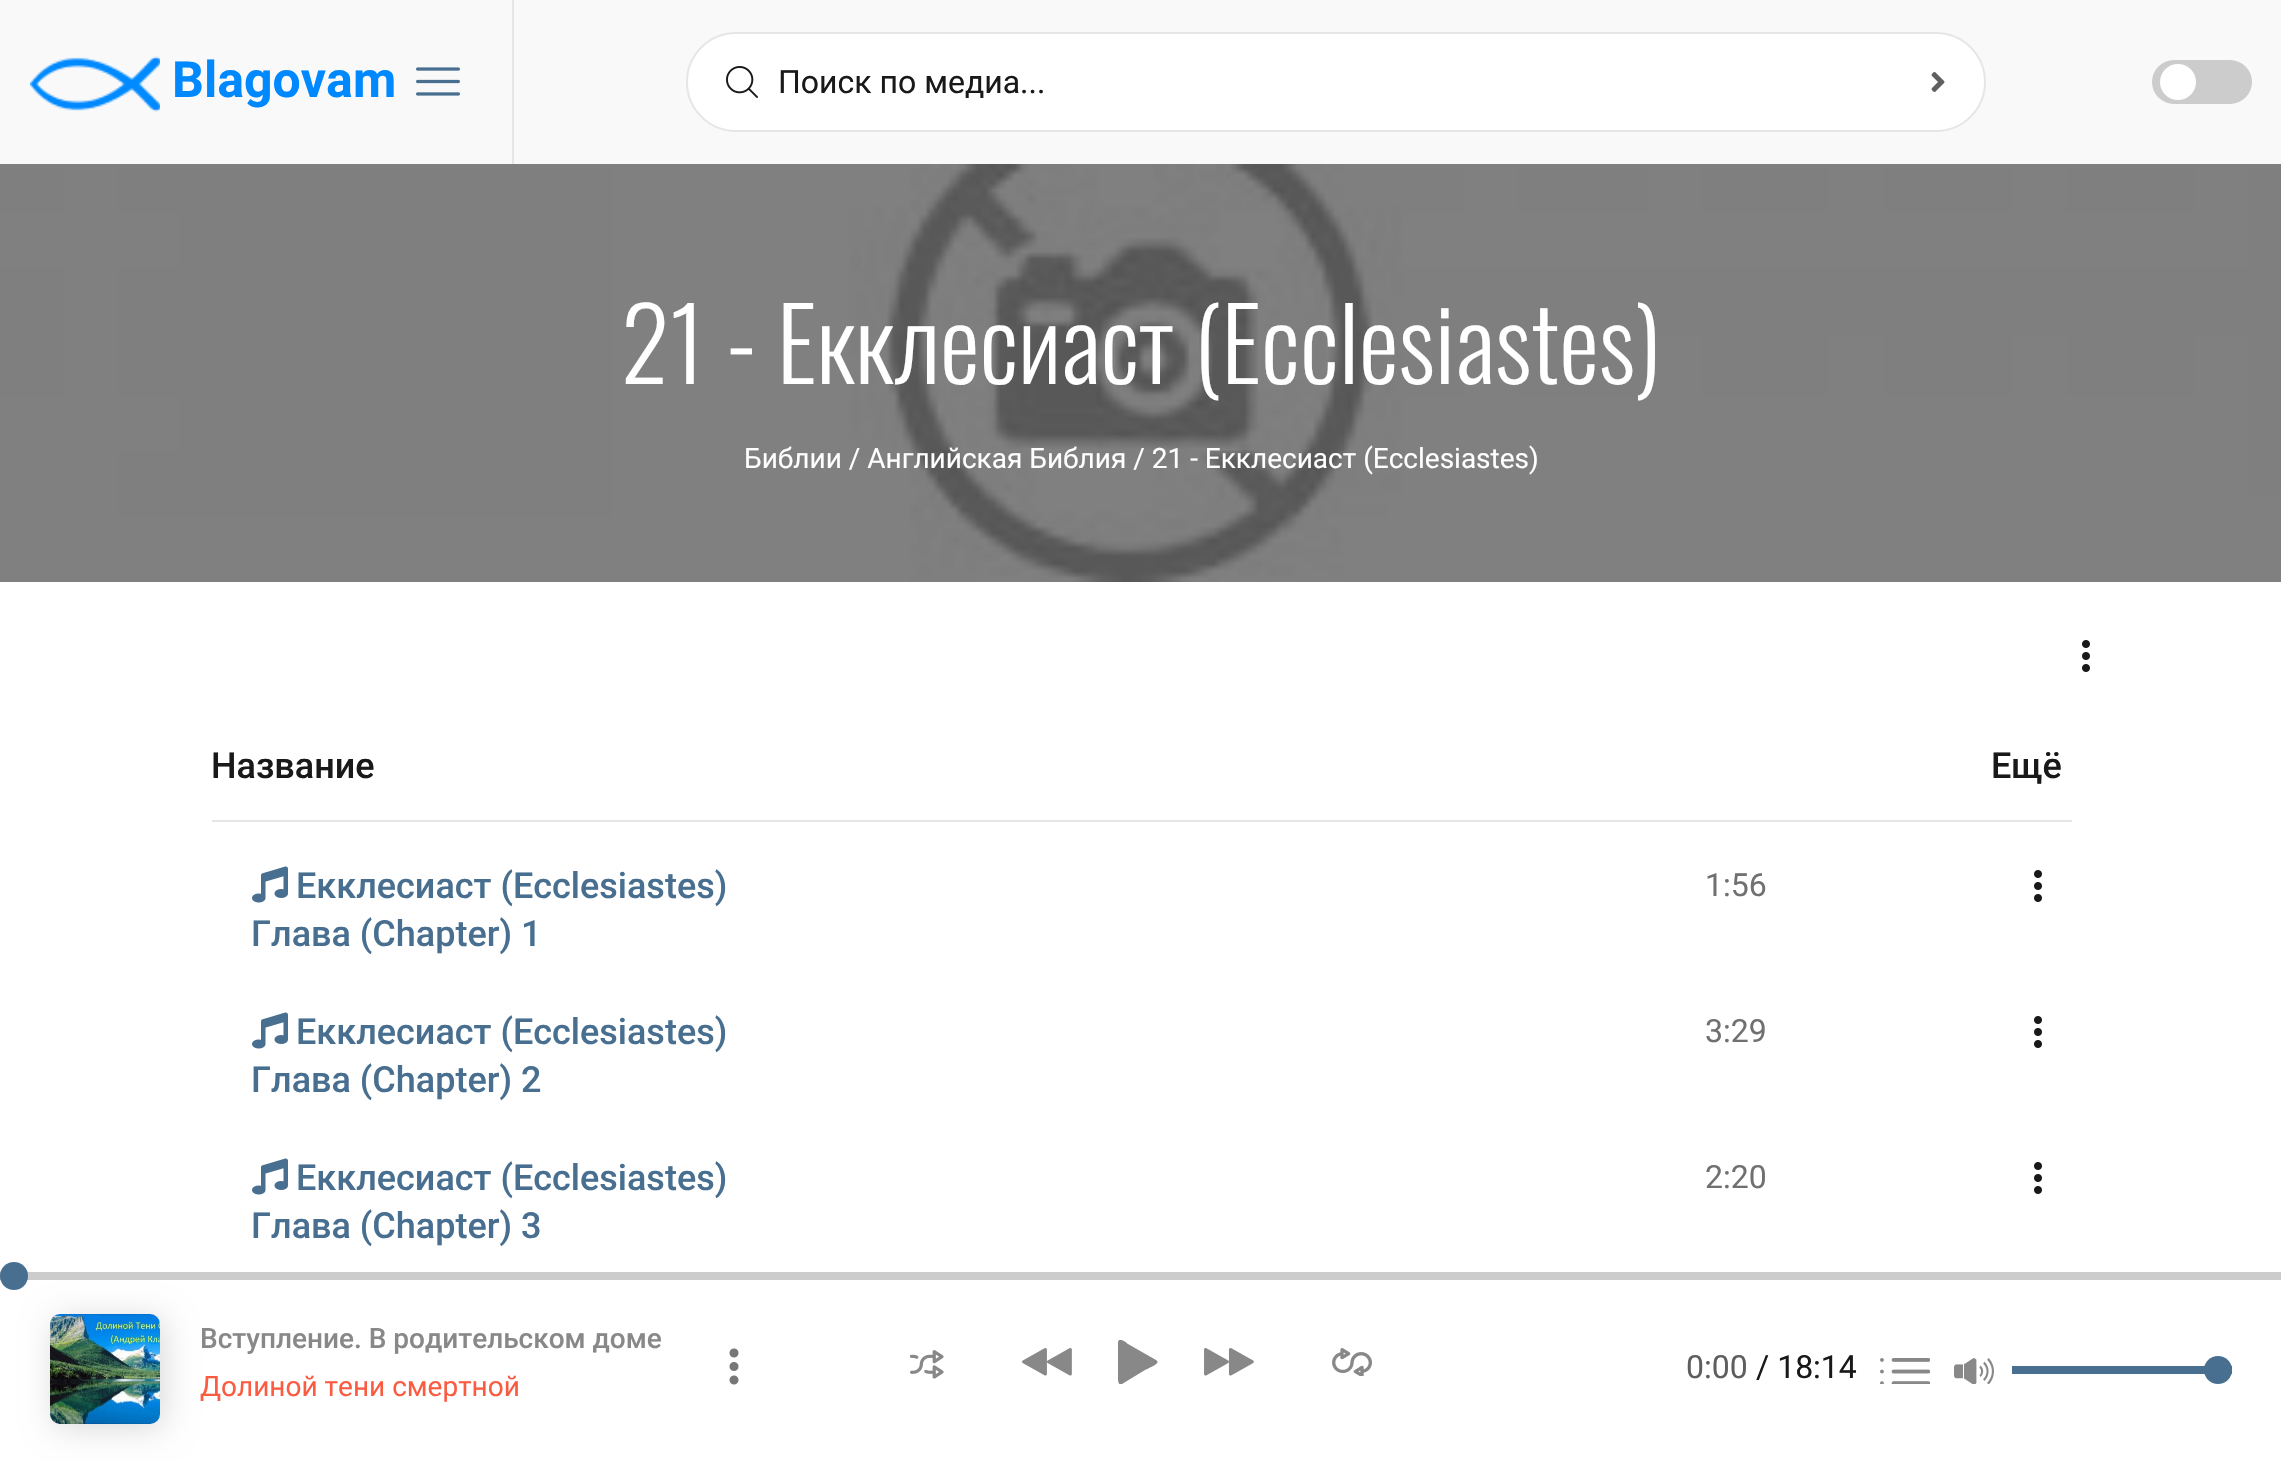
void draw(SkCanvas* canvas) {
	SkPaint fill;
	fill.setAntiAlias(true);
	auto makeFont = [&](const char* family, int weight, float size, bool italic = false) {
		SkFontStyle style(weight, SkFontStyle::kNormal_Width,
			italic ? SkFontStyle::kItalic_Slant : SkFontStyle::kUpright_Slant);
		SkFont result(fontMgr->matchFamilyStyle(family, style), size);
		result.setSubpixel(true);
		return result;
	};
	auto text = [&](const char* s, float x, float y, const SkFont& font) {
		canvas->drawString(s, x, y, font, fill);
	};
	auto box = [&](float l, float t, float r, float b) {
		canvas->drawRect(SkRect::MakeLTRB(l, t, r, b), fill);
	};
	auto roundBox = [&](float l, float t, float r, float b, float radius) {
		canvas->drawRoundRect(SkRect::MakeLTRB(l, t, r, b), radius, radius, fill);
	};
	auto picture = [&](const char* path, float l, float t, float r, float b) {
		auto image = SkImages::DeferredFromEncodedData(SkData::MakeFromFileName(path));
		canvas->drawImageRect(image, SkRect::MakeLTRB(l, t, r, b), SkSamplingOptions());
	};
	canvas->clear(0xFFF9F9F9);
	picture("image0.png", 30, 56, 160, 112);
	picture("image1.png", 416, 67, 460, 96);
	fill.setColor(0xFFE6E6E6);
	box(512, 0, 514, 164);
	fill.setColor(0xFFFFFFFF);
	canvas->drawRoundRect(SkRect::MakeLTRB(687, 33, 1985, 131), 49, 49, fill);
	fill.setStyle(SkPaint::kStroke_Style);
	fill.setStrokeWidth(2);
	fill.setColor(0xFFE6E6E6);
	canvas->drawRoundRect(SkRect::MakeLTRB(687, 33, 1985, 131), 49, 49, fill);
	picture("image2.png", 726, 66, 758, 98);
	picture("image3.png", 1931, 72, 1945, 92);
	fill.setStyle(SkPaint::kFill_Style);
	fill.setColor(0xFFCCCCCC);
	roundBox(2152, 60, 2252, 104, 22);
	fill.setColor(0xFFFFFFFF);
	canvas->drawCircle(2178, 82, 18, fill);
	picture("image4.png", 0, 164, 2281, 582);
	box(0, 582, 2281, 1272);
	picture("image5.png", 2082, 640, 2090, 672);
	fill.setColor(0xFFE6E6E6);
	box(212, 820, 2072, 822);
	picture("image6.png", 252, 866, 288, 903);
	picture("image5.png", 2034, 870, 2042, 902);
	picture("image6.png", 252, 1012, 288, 1049);
	picture("image5.png", 2034, 1016, 2042, 1048);
	picture("image6.png", 252, 1158, 288, 1195);
	picture("image5.png", 2034, 1162, 2042, 1194);
	fill.setColor(0xFFFFFFFF);
	box(0, 1280, 2281, 1462);
	fill.setColor(0xFFCCCCCC);
	box(0, 1272, 2281, 1280);
	fill.setColor(0xFF496F90);
	canvas->drawCircle(14, 1276, 14, fill);
	fill.setColor(0x26000000);
	fill.setMaskFilter(SkMaskFilter::MakeBlur(kNormal_SkBlurStyle, 16));
	canvas->drawRoundRect(SkRect::MakeLTRB(54, 1318, 164, 1428), 10, 10, fill);
	fill.setMaskFilter(nullptr);
	picture("image7.png", 50, 1314, 160, 1424);
	picture("image8.png", 729, 1348, 739, 1385);
	picture("image9.png", 910, 1350, 944, 1379);
	picture("image10.png", 1022, 1348, 1072, 1376);
	canvas->save();
	canvas->clipRect(SkRect::MakeLTRB(1118, 1340, 1158, 1384));
	fill.setColor(0xFF888888);
	canvas->drawPath(SkPathBuilder().moveTo(1156, 1360).lineTo(1128, 1344).cubicTo(1127, 1343, 1122, 1339, 1119, 1340).cubicTo(1117, 1342, 1118, 1348, 1118, 1349).lineTo(1118, 1375).cubicTo(1118, 1375, 1117, 1387, 1122, 1384).lineTo(1145, 1370).cubicTo(1153, 1366, 1161, 1363, 1156, 1360).close().detach(), fill);
	canvas->restore();
	picture("image11.png", 1204, 1348, 1254, 1376);
	picture("image12.png", 1332, 1348, 1372, 1376);
	picture("image13.png", 1880, 1358, 1930, 1384);
	picture("image14.png", 1954, 1358, 1994, 1384);
	fill.setColor(0xFF496F90);
	box(2012, 1366, 2232, 1374);
	canvas->drawCircle(2218, 1370, 14, fill);
	auto font1 = makeFont("Roboto", 700, 50);
	fill.setColor(0xFF0089FF);
	text("Blagovam", 172, 97, font1);
	auto font2 = makeFont("Roboto", 400, 32);
	fill.setColor(0xFF191919);
	text("Поиск по медиа...", 778, 93, font2);
	auto font3 = makeFont("Oswald", 300, 100);
	fill.setColor(0xFFFFFFFF);
	text("21 - Екклесиаст (Ecclesiastes)", 621, 384, font3);
	auto font4 = makeFont("Roboto", 400, 28);
	text("Библии / Английская Библия / 21 - Екклесиаст (Ecclesiastes)", 744, 468, font4);
	auto font5 = makeFont("Roboto", 500, 36);
	fill.setColor(0xFF191919);
	text("Название", 211, 778, font5);
	text("Ещё", 1991, 778, font5);
	fill.setColor(0xFF496F90);
	text("Екклесиаст (Ecclesiastes)", 296, 898, font5);
	text("Глава (Chapter) 1", 251, 946, font5);
	fill.setColor(0xFF707070);
	text("1:56", 1705, 896, font2);
	fill.setColor(0xFF496F90);
	text("Екклесиаст (Ecclesiastes)", 296, 1044, font5);
	text("Глава (Chapter) 2", 251, 1092, font5);
	fill.setColor(0xFF707070);
	text("3:29", 1705, 1042, font2);
	fill.setColor(0xFF496F90);
	text("Екклесиаст (Ecclesiastes)", 296, 1190, font5);
	text("Глава (Chapter) 3", 251, 1238, font5);
	fill.setColor(0xFF707070);
	text("2:20", 1705, 1188, font2);
	auto font6 = makeFont("Roboto", 500, 28);
	fill.setColor(0xFF888888);
	text("Вступление. В родительском доме", 200, 1348, font6);
	fill.setColor(0xFFFA5B41);
	text("Долиной тени смертной", 200, 1396, font4);
	fill.setColor(0xFF5E5E5E);
	text("0:00", 1686, 1378, font2);
	fill.setColor(0xFF191919);
	text("/ 18:14", 1756, 1378, font2);
}
